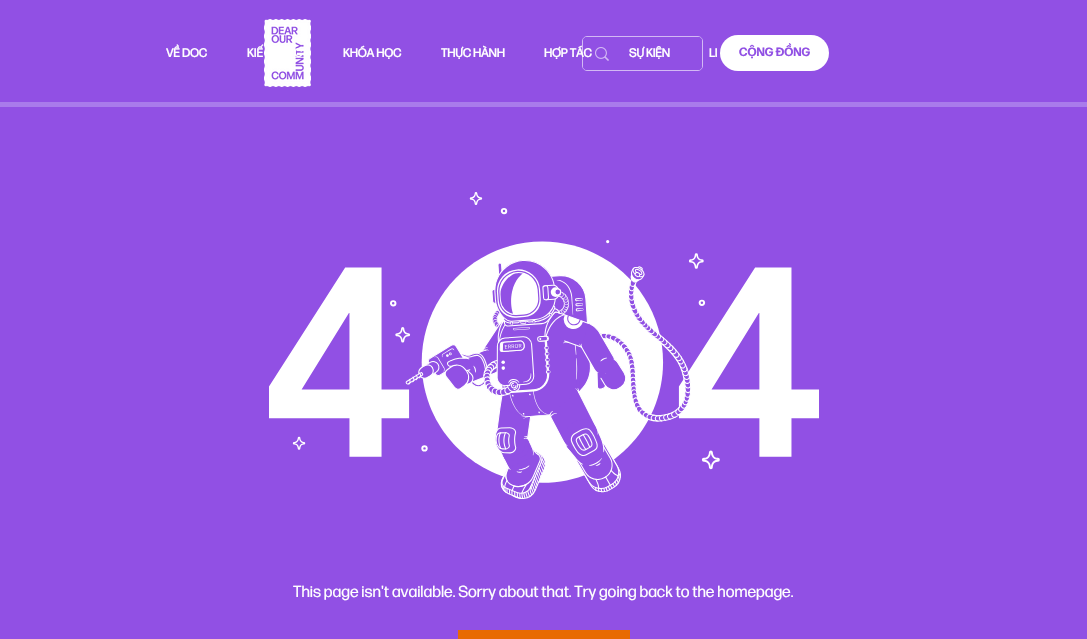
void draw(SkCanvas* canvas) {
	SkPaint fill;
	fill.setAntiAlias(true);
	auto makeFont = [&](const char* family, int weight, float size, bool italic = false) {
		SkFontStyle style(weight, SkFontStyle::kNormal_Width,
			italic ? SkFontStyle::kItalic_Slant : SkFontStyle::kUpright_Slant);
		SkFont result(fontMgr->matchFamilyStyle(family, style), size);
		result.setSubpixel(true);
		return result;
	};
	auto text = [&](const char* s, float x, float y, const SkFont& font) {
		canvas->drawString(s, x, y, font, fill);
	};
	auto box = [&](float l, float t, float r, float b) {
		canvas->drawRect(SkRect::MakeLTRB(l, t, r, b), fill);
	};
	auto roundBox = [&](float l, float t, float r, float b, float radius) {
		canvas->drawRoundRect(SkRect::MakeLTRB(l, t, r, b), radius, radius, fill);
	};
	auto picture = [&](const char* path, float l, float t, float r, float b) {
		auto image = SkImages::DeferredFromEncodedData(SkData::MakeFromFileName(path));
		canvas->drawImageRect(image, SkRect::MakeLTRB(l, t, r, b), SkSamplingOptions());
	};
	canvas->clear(0xFF9150E4);
	picture("image0.png", 264, 19, 311, 87);
	fill.setStyle(SkPaint::kStroke_Style);
	fill.setStrokeWidth(1);
	fill.setColor(0xFFD3B9F4);
	canvas->drawRoundRect(SkRect::MakeLTRB(582.5f, 36.5f, 702.5f, 70.5f), 4.5f, 4.5f, fill);
	fill.setStyle(SkPaint::kFill_Style);
	fill.setColor(0xFF9150E4);
	roundBox(583, 37, 702, 70, 4);
	picture("image1.png", 595, 47, 609, 61);
	fill.setColor(0xFFFFFFFF);
	roundBox(720, 35, 829, 71, 18);
	fill.setColor(0xFFA97BEB);
	box(0, 102, 1087, 107);
	picture("image2.png", 269, 192, 819, 499);
	fill.setColor(0xFFE86A02);
	box(458, 630, 630, 639);
	auto font1 = makeFont("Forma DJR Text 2", 700, 12);
	fill.setColor(0xFFFFFFFF);
	text("VỀ DOC", 166, 57, font1);
	text("KIẾ", 247, 57, font1);
	text("C", 294, 57, font1);
	text("KHÓA HỌC", 343, 57, font1);
	text("THỰC HÀNH", 441, 57, font1);
	text("HỢP TÁC", 544, 57, font1);
	text("SỰ KIỆN", 629, 57, font1);
	text("LI", 709, 57, font1);
	auto font2 = makeFont("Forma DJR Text", 700, 12);
	fill.setColor(0xFF9150E4);
	text("CỘNG ĐỒNG", 739, 56, font2);
	auto font3 = makeFont("Forma DJR Text", 400, 16);
	fill.setColor(0xFFFFFFFF);
	text("This page isn't available. Sorry about that. Try going back to the homepage.", 293, 597, font3);
}
